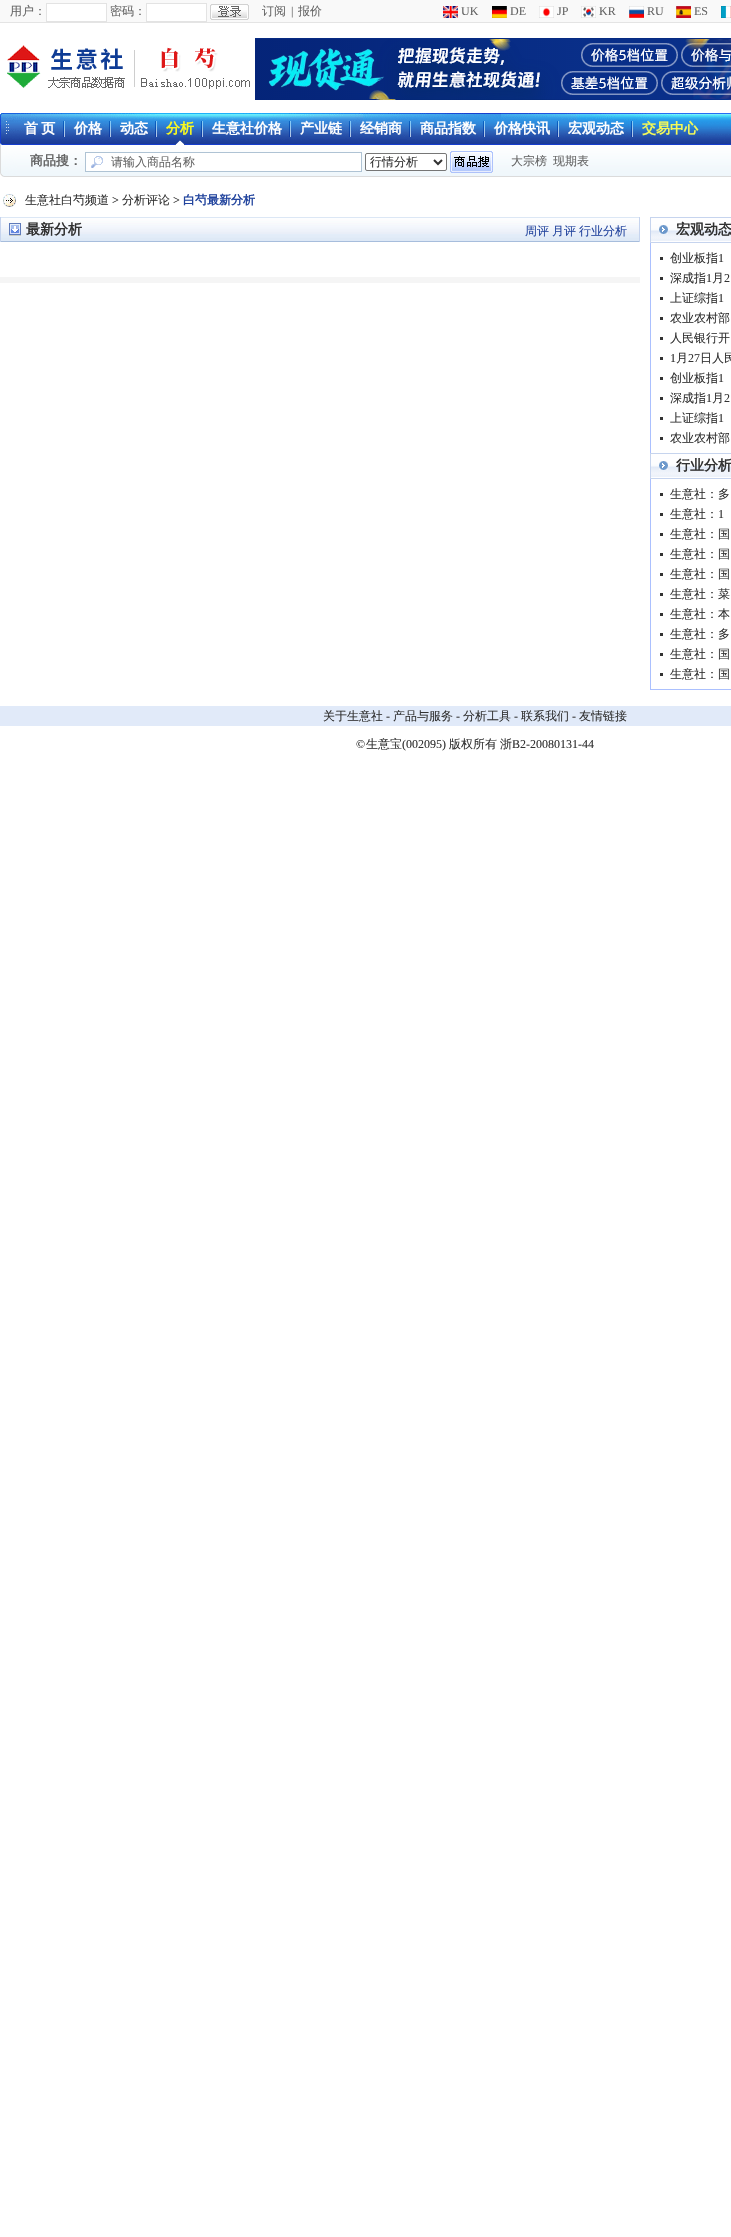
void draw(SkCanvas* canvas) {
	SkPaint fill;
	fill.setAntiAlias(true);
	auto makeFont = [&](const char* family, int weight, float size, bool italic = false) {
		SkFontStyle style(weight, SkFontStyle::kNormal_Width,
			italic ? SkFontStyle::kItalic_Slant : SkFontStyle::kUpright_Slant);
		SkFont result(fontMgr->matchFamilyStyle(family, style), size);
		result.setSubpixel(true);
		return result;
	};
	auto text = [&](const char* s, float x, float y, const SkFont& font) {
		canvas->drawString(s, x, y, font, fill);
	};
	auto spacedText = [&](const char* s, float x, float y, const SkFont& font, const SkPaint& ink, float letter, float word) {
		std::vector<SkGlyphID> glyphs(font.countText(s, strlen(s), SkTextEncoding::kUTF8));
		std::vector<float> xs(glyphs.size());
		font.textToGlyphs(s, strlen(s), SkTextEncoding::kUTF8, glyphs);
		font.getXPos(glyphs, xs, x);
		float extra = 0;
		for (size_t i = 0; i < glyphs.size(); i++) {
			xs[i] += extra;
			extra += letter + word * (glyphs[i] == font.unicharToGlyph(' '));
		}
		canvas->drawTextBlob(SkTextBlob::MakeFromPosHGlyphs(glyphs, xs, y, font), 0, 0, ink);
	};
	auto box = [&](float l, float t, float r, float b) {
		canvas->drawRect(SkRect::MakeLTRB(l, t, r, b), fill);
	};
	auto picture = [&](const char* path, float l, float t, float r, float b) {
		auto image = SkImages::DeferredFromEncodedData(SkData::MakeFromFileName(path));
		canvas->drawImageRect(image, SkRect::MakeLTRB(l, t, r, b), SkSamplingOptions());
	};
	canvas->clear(0xFFFFFFFF);
	fill.setColor(0xFFF9F9F9);
	box(0, 0, 731, 22);
	fill.setColor(0xFFE4E4E4);
	box(0, 22, 731, 23);
	fill.setColor(0xFFFFFFFF);
	canvas->drawRect(SkRect::MakeLTRB(46.5f, 3.5f, 106.5f, 21.5f), fill);
	fill.setStyle(SkPaint::kStroke_Style);
	fill.setStrokeWidth(1);
	fill.setColor(0xFFE3E3E3);
	canvas->drawRect(SkRect::MakeLTRB(46.5f, 3.5f, 106.5f, 21.5f), fill);
	fill.setStyle(SkPaint::kFill_Style);
	fill.setColor(0xFFFFFFFF);
	canvas->drawRect(SkRect::MakeLTRB(146.5f, 3.5f, 206.5f, 21.5f), fill);
	fill.setStyle(SkPaint::kStroke_Style);
	fill.setColor(0xFFE3E3E3);
	canvas->drawRect(SkRect::MakeLTRB(146.5f, 3.5f, 206.5f, 21.5f), fill);
	picture("image0.png", 210, 4, 249, 20);
	picture("image1.png", 443, 6, 458, 18);
	picture("image2.png", 492, 6, 507, 18);
	picture("image3.png", 539, 6, 554, 18);
	picture("image4.png", 581, 6, 596, 18);
	picture("image5.png", 629, 6, 644, 18);
	picture("image6.png", 676, 6, 691, 18);
	picture("image7.png", 721, 6, 731, 18);
	picture("image8.png", 7, 45, 250, 89);
	picture("image9.png", 255, 38, 731, 100);
	picture("image10.png", 0, 113, 731, 145);
	picture("image11.png", 63, 121, 65, 137);
	picture("image11.png", 109, 121, 111, 137);
	picture("image11.png", 155, 121, 157, 137);
	picture("image11.png", 201, 121, 203, 137);
	picture("image12.png", 175, 140, 185, 145);
	picture("image11.png", 289, 121, 291, 137);
	picture("image11.png", 349, 121, 351, 137);
	picture("image11.png", 409, 121, 411, 137);
	picture("image11.png", 483, 121, 485, 137);
	picture("image11.png", 557, 121, 559, 137);
	picture("image11.png", 631, 121, 633, 137);
	picture("image13.png", 0, 145, 731, 177);
	fill.setStyle(SkPaint::kFill_Style);
	fill.setColor(0xFFFFFFFF);
	box(86, 153, 361, 171);
	picture("image14.png", 91, 156, 103, 168);
	fill.setStyle(SkPaint::kStroke_Style);
	fill.setColor(0xFFAFC3D4);
	canvas->drawRect(SkRect::MakeLTRB(85.5f, 152.5f, 361.5f, 171.5f), fill);
	fill.setStyle(SkPaint::kFill_Style);
	fill.setColor(0xFFFFFFFF);
	canvas->drawRoundRect(SkRect::MakeLTRB(365.5f, 153.5f, 446.5f, 170.5f), 1.5f, 1.5f, fill);
	fill.setStyle(SkPaint::kStroke_Style);
	fill.setColor(0xFF767676);
	canvas->drawRoundRect(SkRect::MakeLTRB(365.5f, 153.5f, 446.5f, 170.5f), 1.5f, 1.5f, fill);
	fill.setStrokeWidth(2);
	fill.setColor(0xFF323232);
	canvas->drawPath(SkPathBuilder().moveTo(434, 160).lineTo(438, 164).lineTo(442, 160).detach(), fill);
	picture("image15.png", 450, 151, 493, 173);
	picture("image16.png", 3, 193, 16, 207);
	picture("image17.png", 1, 217, 639, 242);
	fill.setStyle(SkPaint::kFill_Style);
	fill.setColor(0xFFC6D4EE);
	box(639, 217, 640, 242);
	box(0, 217, 1, 242);
	picture("image18.png", 9, 223, 21, 236);
	fill.setColor(0xFFF5F5F5);
	box(0, 277, 640, 283);
	fill.setColor(0xFFABC0FE);
	box(650, 243, 651, 689);
	picture("image19.png", 651, 217, 731, 243);
	fill.setColor(0xFFC6D4EE);
	box(650, 217, 651, 243);
	picture("image20.png", 659, 225, 668, 234);
	fill.setColor(0xFF333333);
	box(660, 257, 663, 260);
	box(660, 277, 663, 280);
	box(660, 297, 663, 300);
	box(660, 317, 663, 320);
	box(660, 337, 663, 340);
	box(660, 357, 663, 360);
	box(660, 377, 663, 380);
	box(660, 397, 663, 400);
	box(660, 417, 663, 420);
	box(660, 437, 663, 440);
	picture("image19.png", 651, 453, 731, 479);
	fill.setColor(0xFFC6D4EE);
	box(650, 453, 651, 479);
	picture("image20.png", 659, 461, 668, 470);
	fill.setColor(0xFF333333);
	box(660, 493, 663, 496);
	box(660, 513, 663, 516);
	box(660, 533, 663, 536);
	box(660, 553, 663, 556);
	box(660, 573, 663, 576);
	box(660, 593, 663, 596);
	box(660, 613, 663, 616);
	box(660, 633, 663, 636);
	box(660, 653, 663, 656);
	box(660, 673, 663, 676);
	fill.setColor(0xFFABC0FE);
	box(650, 689, 731, 690);
	fill.setColor(0xFFE1EAF9);
	box(0, 706, 731, 726);
	auto font1 = makeFont("WenQuanYi Zen Hei", 500, 12);
	fill.setColor(0xFF656565);
	text("用户：", 10, 15, font1);
	text("密码：", 110, 15, font1);
	text("订阅", 262, 15, font1);
	auto font2 = makeFont("Liberation Serif", 400, 12);
	text("|", 291, 15, font2);
	text("报价", 298, 15, font1);
	text("UK", 461, 15, font2);
	text("DE", 510, 15, font2);
	text("JP", 557, 15, font2);
	text("KR", 599, 15, font2);
	text("RU", 647, 15, font2);
	text("ES", 694, 15, font2);
	auto font3 = makeFont("WenQuanYi Zen Hei", 700, 14);
	fill.setColor(0xFFFFFFFF);
	spacedText("首 页", 24, 133, font3, fill, 0, -1);
	text("价格", 74, 133, font3);
	text("动态", 120, 133, font3);
	fill.setColor(0xFFFCFB1E);
	text("分析", 166, 133, font3);
	fill.setColor(0xFFFFFFFF);
	text("生意社价格", 212, 133, font3);
	text("产业链", 300, 133, font3);
	text("经销商", 360, 133, font3);
	text("商品指数", 420, 133, font3);
	text("价格快讯", 494, 133, font3);
	text("宏观动态", 568, 133, font3);
	fill.setColor(0xFFF4FA58);
	text("交易中心", 642, 133, font3);
	auto font4 = makeFont("WenQuanYi Zen Hei", 700, 13);
	fill.setColor(0xFF656565);
	text("商品搜：", 30, 165, font4);
	text("请输入商品名称", 111, 166, font1);
	fill.setColor(0xFF323232);
	text("行情分析", 370, 166, font1);
	fill.setColor(0xFF656565);
	text("大宗榜", 511, 165, font1);
	text("现期表", 553, 165, font1);
	fill.setColor(0xFF323232);
	text("生意社白芍频道", 25, 204, font1);
	text(">", 112, 204, font2);
	text("分析评论", 122, 204, font1);
	text(">", 173, 204, font2);
	auto font5 = makeFont("WenQuanYi Zen Hei", 700, 12);
	fill.setColor(0xFF23459E);
	text("白芍最新分析", 183, 204, font5);
	fill.setColor(0xFF323232);
	text("最新分析", 26, 234, font3);
	fill.setColor(0xFF23459E);
	text("周评", 525, 235, font1);
	text("月评", 552, 235, font1);
	text("行业分析", 579, 235, font1);
	fill.setColor(0xFF323232);
	text("宏观动态", 676, 234, font3);
	text("创业板指", 670, 262, font1);
	text("1", 718, 262, font2);
	text("深成指", 670, 282, font1);
	text("1", 706, 282, font2);
	text("月", 712, 282, font1);
	text("2", 724, 282, font2);
	text("上证综指", 670, 302, font1);
	text("1", 718, 302, font2);
	text("农业农村部", 670, 322, font1);
	text("人民银行开", 670, 342, font1);
	text("1", 670, 362, font2);
	text("月", 676, 362, font1);
	text("27", 688, 362, font2);
	text("日人民", 700, 362, font1);
	text("创业板指", 670, 382, font1);
	text("1", 718, 382, font2);
	text("深成指", 670, 402, font1);
	text("1", 706, 402, font2);
	text("月", 712, 402, font1);
	text("2", 724, 402, font2);
	text("上证综指", 670, 422, font1);
	text("1", 718, 422, font2);
	text("农业农村部", 670, 442, font1);
	text("行业分析", 676, 470, font3);
	spacedText("生意社：多", 670, 498, font1, fill, 0, -1);
	text("生意社：", 670, 518, font1);
	text("1", 718, 518, font2);
	text("生意社：国", 670, 538, font1);
	text("生意社：国", 670, 558, font1);
	text("生意社：国", 670, 578, font1);
	spacedText("生意社：菜", 670, 598, font1, fill, 0, -1);
	text("生意社：本", 670, 618, font1);
	spacedText("生意社：多", 670, 638, font1, fill, 0, -1);
	text("生意社：国", 670, 658, font1);
	text("生意社：国", 670, 678, font1);
	text("关于生意社", 323, 720, font1);
	text("-", 386, 720, font2);
	text("产品与服务", 393, 720, font1);
	text("-", 456, 720, font2);
	text("分析工具", 463, 720, font1);
	text("-", 514, 720, font2);
	text("联系我们", 521, 720, font1);
	text("-", 572, 720, font2);
	text("友情链接", 579, 720, font1);
	text("©", 356, 748, font2);
	text("生意宝", 366, 748, font1);
	text("(002095)", 402, 748, font2);
	text("版权所有", 449, 748, font1);
	text("浙", 500, 748, font1);
	text("B2-20080131-44", 512, 748, font2);
}
